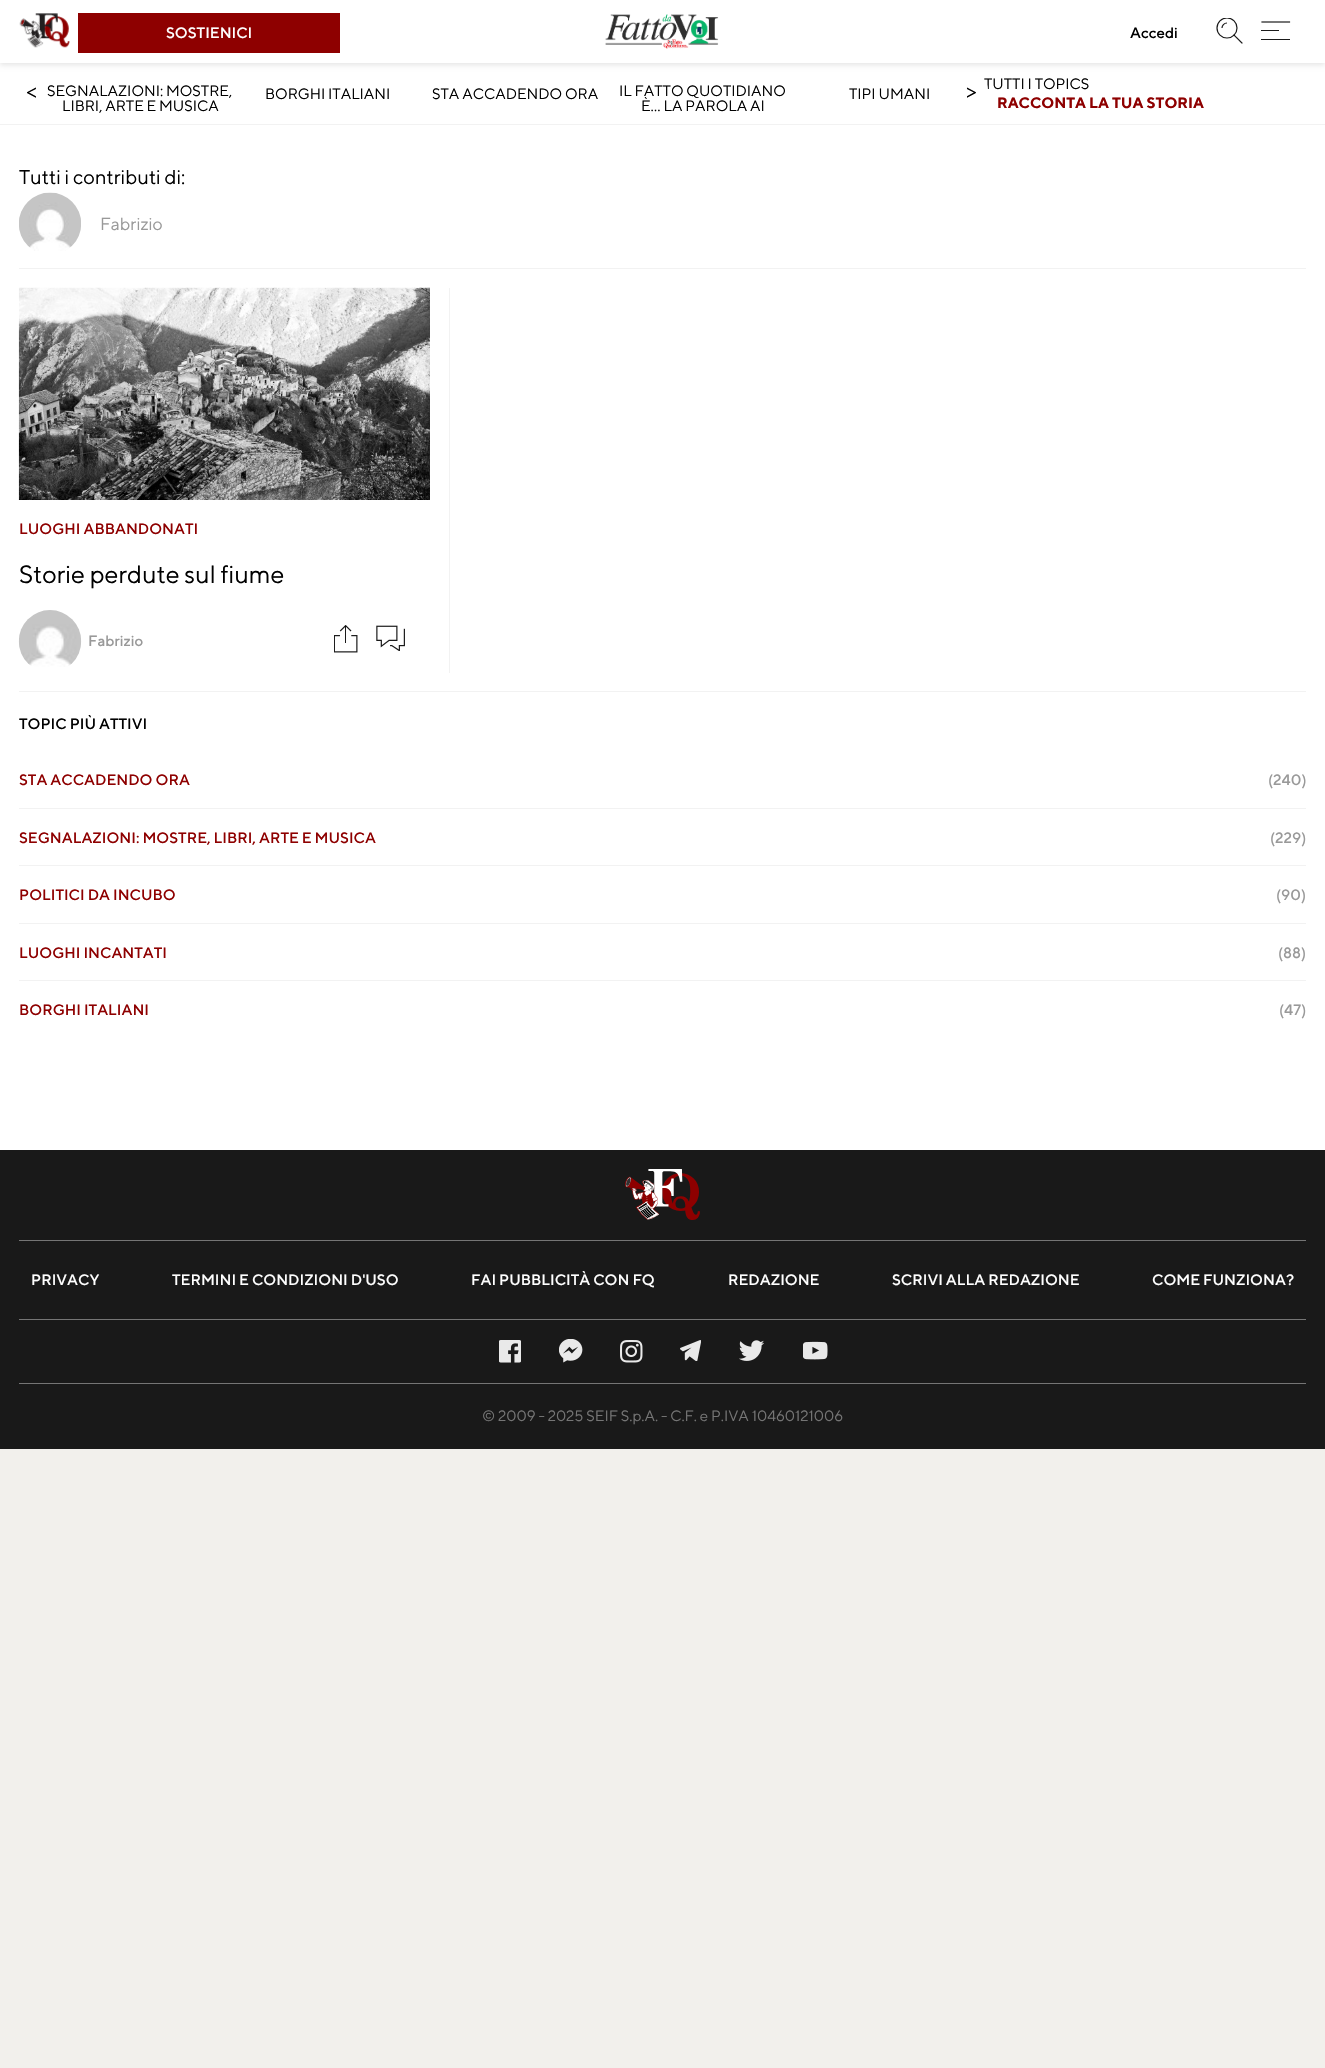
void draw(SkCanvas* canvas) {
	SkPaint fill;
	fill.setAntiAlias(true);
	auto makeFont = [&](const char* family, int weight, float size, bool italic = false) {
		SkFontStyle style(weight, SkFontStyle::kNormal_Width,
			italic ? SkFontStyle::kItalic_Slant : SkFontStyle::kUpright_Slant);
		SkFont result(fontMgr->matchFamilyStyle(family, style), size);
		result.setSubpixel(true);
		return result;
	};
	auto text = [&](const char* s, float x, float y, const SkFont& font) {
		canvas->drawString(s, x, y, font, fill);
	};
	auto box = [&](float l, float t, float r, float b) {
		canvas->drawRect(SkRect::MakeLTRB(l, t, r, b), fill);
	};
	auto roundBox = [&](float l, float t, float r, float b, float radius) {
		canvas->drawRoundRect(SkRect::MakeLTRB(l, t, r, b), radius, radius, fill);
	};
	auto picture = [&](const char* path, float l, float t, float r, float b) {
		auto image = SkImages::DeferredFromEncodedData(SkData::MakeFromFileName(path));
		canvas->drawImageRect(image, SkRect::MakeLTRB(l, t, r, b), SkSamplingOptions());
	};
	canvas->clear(0xFFF2F0EC);
	fill.setColor(0xFFFFFFFF);
	box(0, 63, 1325, 1150);
	fill.setColor(0x1A000000);
	fill.setMaskFilter(SkMaskFilter::MakeBlur(kNormal_SkBlurStyle, 2.5f));
	canvas->drawRect(SkRect::MakeLTRB(0, 3, 1325, 65), fill);
	fill.setMaskFilter(nullptr);
	fill.setColor(0xFFFFFFFF);
	box(0, 0, 1325, 63);
	picture("image0.png", 19, 13, 70, 48);
	fill.setColor(0xFF8E0000);
	box(78, 13, 340, 53);
	picture("image1.png", 605, 14, 719, 49);
	fill.setStyle(SkPaint::kStroke_Style);
	fill.setStrokeWidth(1.2f);
	fill.setStrokeCap(SkPaint::kSquare_Cap);
	fill.setColor(0xFF1A1A1A);
	canvas->drawPath(SkPathBuilder().moveTo(1242, 43).lineTo(1234, 35).detach(), fill);
	canvas->save();
	canvas->clipRect(SkRect::MakeLTRB(1216, 18, 1243, 44));
	fill.setStrokeCap(SkPaint::kButt_Cap);
	fill.setColor(0xE6000000);
	canvas->drawCircle(1227, 28, 10, fill);
	canvas->restore();
	fill.setColor(0xFF1A1A1A);
	canvas->drawPath(SkPathBuilder().moveTo(1222, 28).cubicTo(1222, 25.5f, 1224, 23, 1227, 23).detach(), fill);
	fill.setStrokeCap(SkPaint::kSquare_Cap);
	canvas->drawPath(SkPathBuilder().moveTo(1262, 22).lineTo(1289.5f, 22).detach(), fill);
	fill.setStyle(SkPaint::kFill_Style);
	box(1261, 30, 1279, 31);
	box(1261, 39, 1290, 40);
	fill.setColor(0xFFF2F2F2);
	box(0, 124, 1325, 125);
	box(19, 268, 1306, 269);
	picture("image2.png", 19, 192, 81, 251);
	box(19, 691, 1306, 692);
	box(449, 288, 450, 673);
	picture("image3.png", 18, 287, 430, 500);
	picture("image4.png", 18, 610, 82, 667);
	picture("image5.png", 334, 625, 358, 653);
	picture("image6.png", 376, 625, 405, 651);
	box(19, 808, 1306, 809);
	box(19, 865, 1306, 866);
	box(19, 923, 1306, 924);
	box(19, 980, 1306, 981);
	fill.setColor(0xFF191919);
	box(0, 1150, 1325, 1449);
	picture("image7.png", 625, 1169, 700, 1220);
	fill.setColor(0xFF757575);
	box(19, 1240, 1306, 1241);
	box(19, 1319, 1306, 1320);
	box(19, 1383, 1306, 1384);
	picture("image8.png", 499, 1340, 521, 1363);
	picture("image9.png", 559, 1339, 583, 1363);
	picture("image10.png", 620, 1340, 643, 1363);
	picture("image11.png", 680, 1340, 701, 1361);
	picture("image12.png", 739, 1340, 764, 1361);
	picture("image13.png", 803, 1341, 828, 1360);
	auto font1 = makeFont("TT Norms", 500, 15);
	fill.setColor(0xFFFFFFFF);
	text("SOSTIENICI", 166, 38, font1);
	fill.setColor(0xFF000000);
	text("Accedi", 1130, 38, font1);
	auto font2 = makeFont("TT Norms", 400, 15);
	text("SEGNALAZIONI: MOSTRE,", 47, 96, font2);
	text("LIBRI, ARTE E MUSICA", 62, 111, font2);
	text("BORGHI ITALIANI", 265, 99, font2);
	text("STA ACCADENDO ORA", 432, 99, font2);
	text("IL FATTO QUOTIDIANO", 619, 96, font2);
	text("È… LA PAROLA AI", 641, 111, font2);
	text("TIPI UMANI", 849, 99, font2);
	auto font3 = makeFont("TT Norms", 400, 22);
	text("<", 26, 98, font3);
	text("TUTTI I TOPICS", 984, 89, font2);
	fill.setColor(0xFFFFFFFF);
	roundBox(956, 75, 988, 106, 15.5f);
	fill.setColor(0xFF000000);
	text(">", 966, 98, font3);
	auto font4 = makeFont("TT Norms", 700, 15);
	fill.setColor(0xFF8E0000);
	text("RACCONTA LA TUA STORIA", 997, 108, font4);
	auto font5 = makeFont("TT Norms", 400, 20);
	fill.setColor(0xFF000000);
	text("Tutti i contributi di:", 19, 184, font5);
	auto font6 = makeFont("TT Norms", 400, 17.5f);
	fill.setColor(0xFF999999);
	text("Fabrizio", 100, 230, font6);
	fill.setColor(0xFF8E0000);
	text("LUOGHI ABBANDONATI", 19, 534, font1);
	auto font7 = makeFont("TT Norms", 400, 25);
	fill.setColor(0xFF000000);
	text("Storie perdute sul fiume", 19, 583, font7);
	fill.setColor(0xFF999999);
	text("Fabrizio", 88, 646, font1);
	fill.setColor(0xFF000000);
	text("TOPIC PIÙ ATTIVI", 19, 729, font1);
	fill.setColor(0xFF8E0000);
	text("STA ACCADENDO ORA", 19, 785, font1);
	fill.setColor(0xFF999999);
	text("(240)", 1268, 785, font1);
	fill.setColor(0xFF8E0000);
	text("SEGNALAZIONI: MOSTRE, LIBRI, ARTE E MUSICA", 19, 843, font1);
	fill.setColor(0xFF999999);
	text("(229)", 1270, 843, font1);
	fill.setColor(0xFF8E0000);
	text("POLITICI DA INCUBO", 19, 900, font1);
	fill.setColor(0xFF999999);
	text("(90)", 1276, 900, font1);
	fill.setColor(0xFF8E0000);
	text("LUOGHI INCANTATI", 19, 958, font1);
	fill.setColor(0xFF999999);
	text("(88)", 1278, 958, font1);
	fill.setColor(0xFF8E0000);
	text("BORGHI ITALIANI", 19, 1015, font1);
	fill.setColor(0xFF999999);
	text("(47)", 1279, 1015, font1);
	fill.setColor(0xFFFFFFFF);
	text("PRIVACY", 31, 1285, font1);
	text("TERMINI E CONDIZIONI D'USO", 172, 1285, font1);
	text("FAI PUBBLICITÀ CON FQ", 471, 1285, font1);
	text("REDAZIONE", 728, 1285, font1);
	text("SCRIVI ALLA REDAZIONE", 892, 1285, font1);
	text("COME FUNZIONA?", 1152, 1285, font1);
	fill.setColor(0xFF757575);
	text("© 2009 - 2025 SEIF S.p.A. - C.F. e P.IVA 10460121006", 482, 1421, font2);
}
